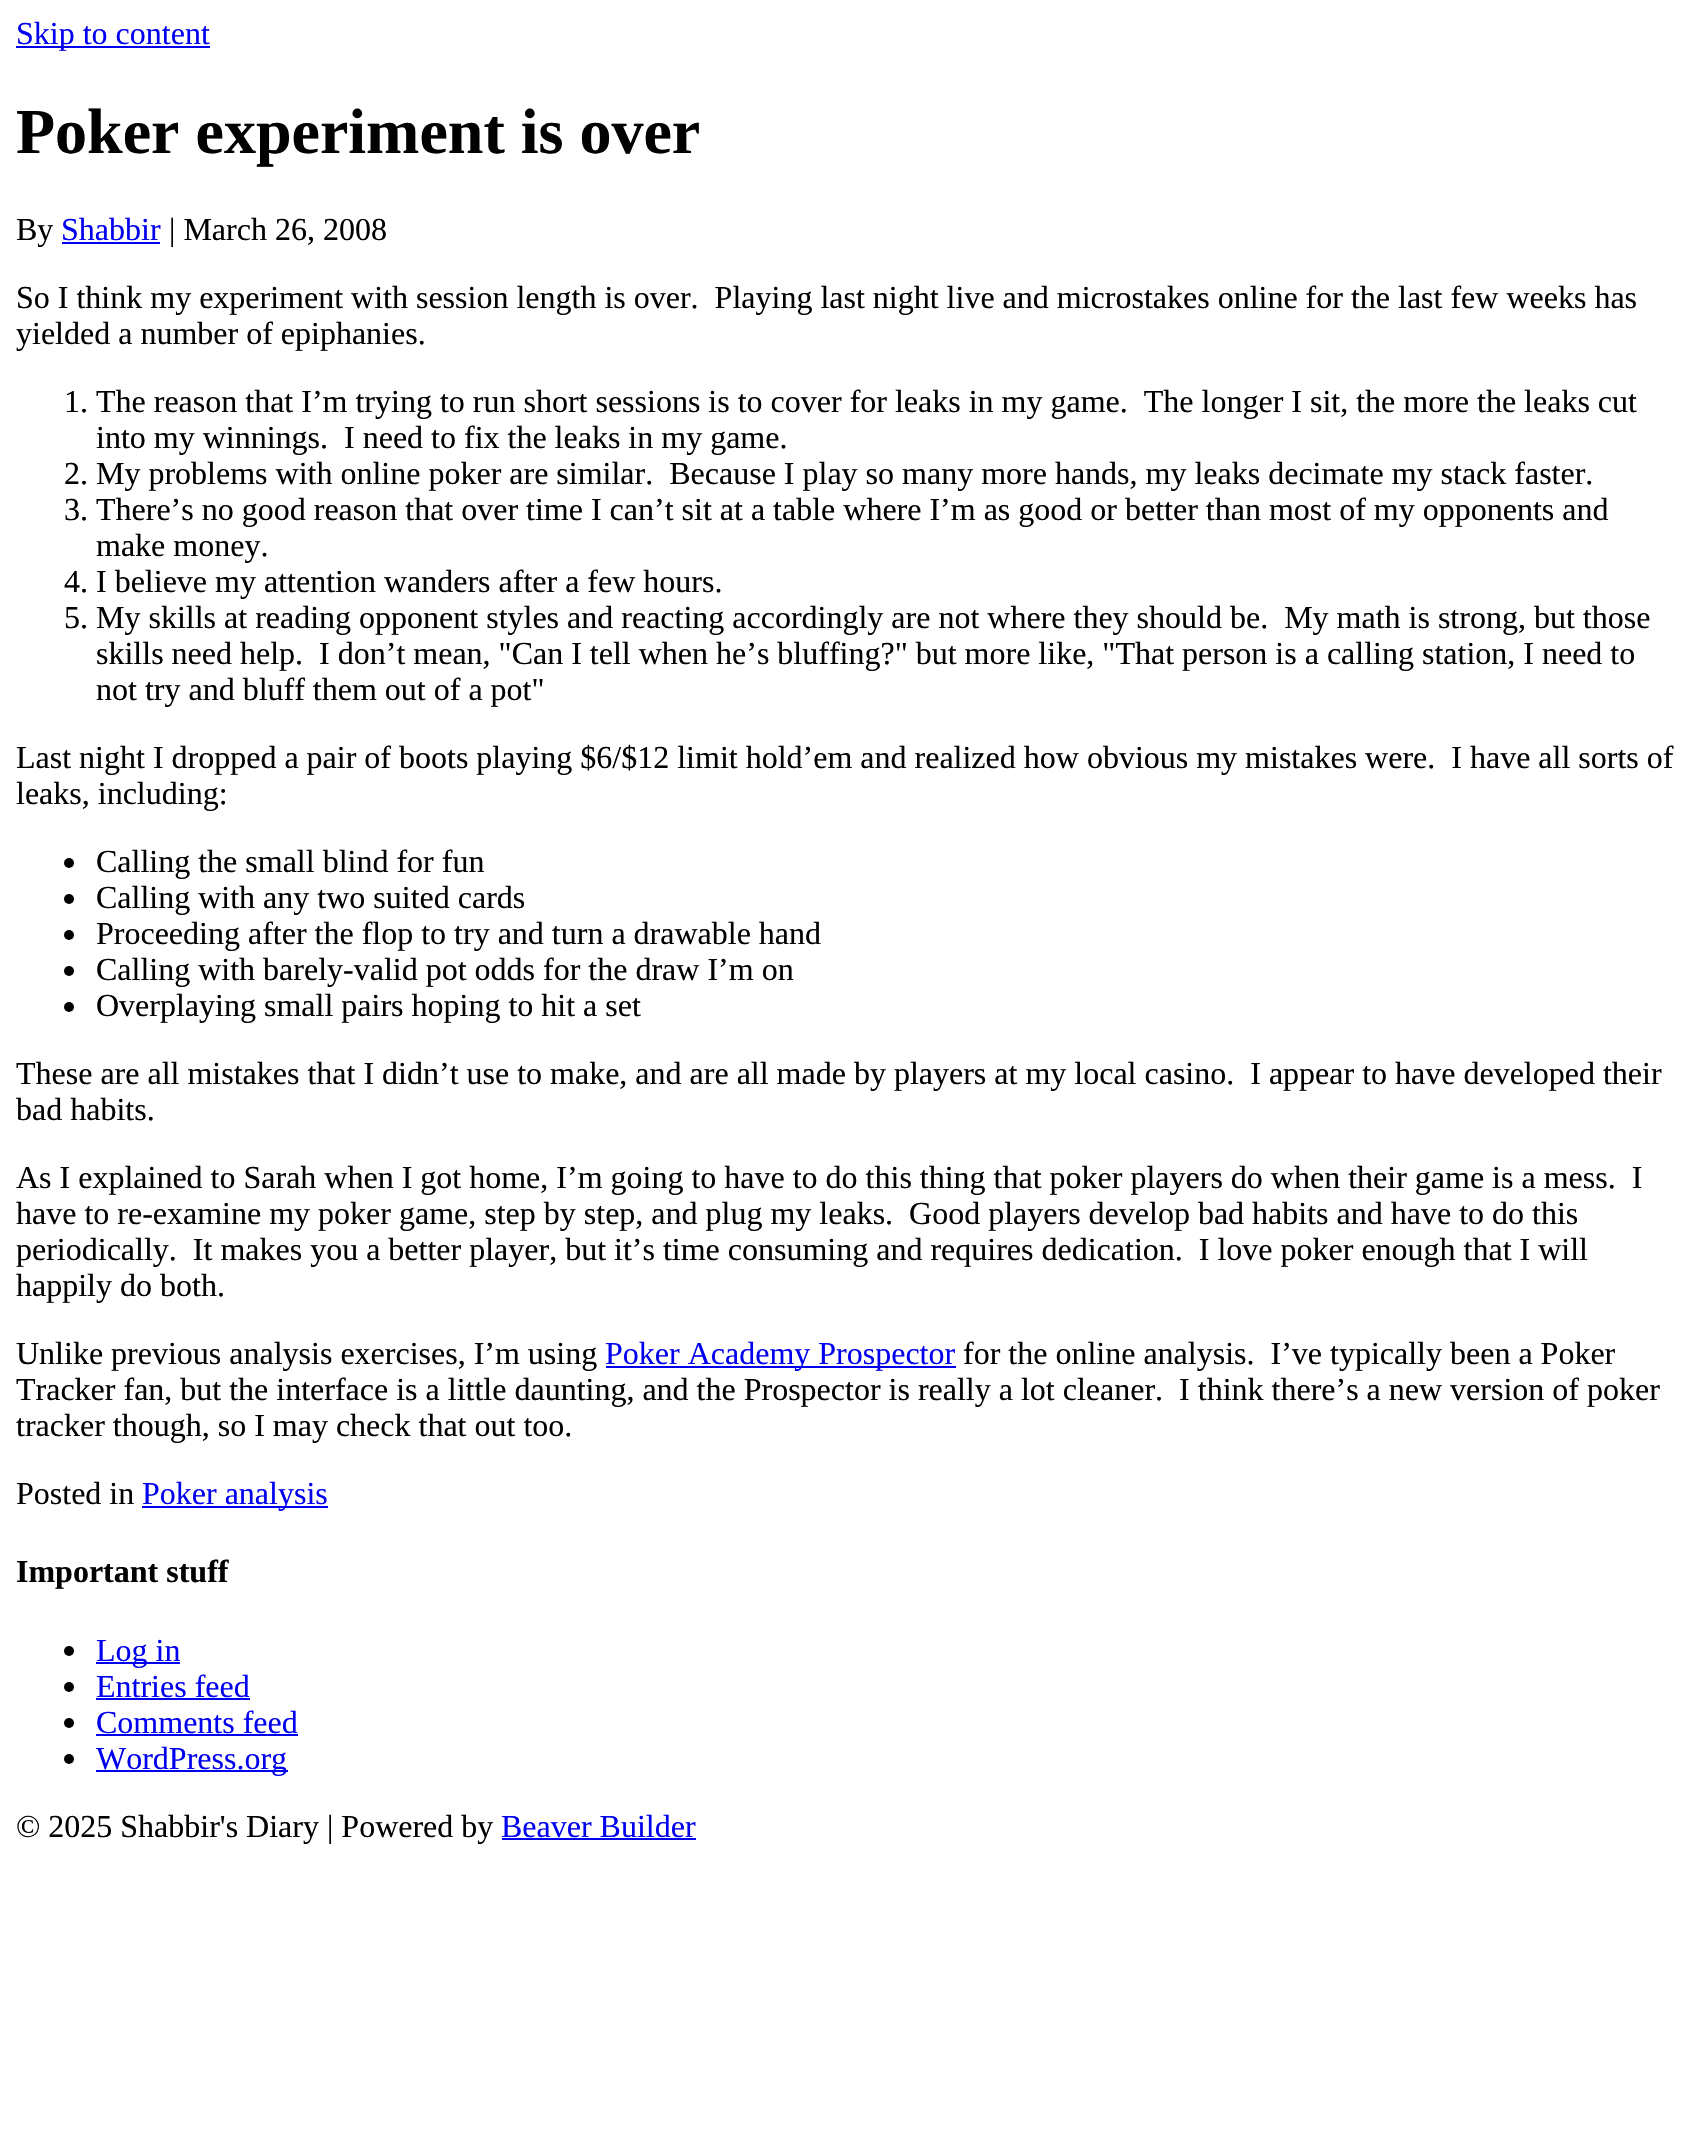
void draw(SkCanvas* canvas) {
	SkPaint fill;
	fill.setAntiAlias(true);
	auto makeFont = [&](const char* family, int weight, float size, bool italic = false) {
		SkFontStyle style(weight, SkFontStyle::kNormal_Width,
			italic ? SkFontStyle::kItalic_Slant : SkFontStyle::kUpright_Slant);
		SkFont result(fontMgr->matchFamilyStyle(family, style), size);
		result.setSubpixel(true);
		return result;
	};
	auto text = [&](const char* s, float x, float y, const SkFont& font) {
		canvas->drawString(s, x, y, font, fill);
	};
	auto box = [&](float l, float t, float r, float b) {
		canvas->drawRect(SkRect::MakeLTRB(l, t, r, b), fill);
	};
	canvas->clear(0xFFFFFFFF);
	fill.setColor(0xFF0000EE);
	box(16, 46, 210, 48);
	box(62, 242, 160, 244);
	fill.setColor(0xFF000000);
	canvas->drawCircle(69, 863, 5, fill);
	canvas->drawCircle(69, 899, 5, fill);
	canvas->drawCircle(69, 935, 5, fill);
	canvas->drawCircle(69, 971, 5, fill);
	canvas->drawCircle(69, 1007, 5, fill);
	fill.setColor(0xFF0000EE);
	box(606, 1366, 956, 1368);
	box(142, 1506, 328, 1508);
	fill.setColor(0xFF000000);
	canvas->drawCircle(69, 1651, 5, fill);
	fill.setColor(0xFF0000EE);
	box(96, 1662, 180, 1664);
	fill.setColor(0xFF000000);
	canvas->drawCircle(69, 1687, 5, fill);
	fill.setColor(0xFF0000EE);
	box(96, 1698, 250, 1700);
	fill.setColor(0xFF000000);
	canvas->drawCircle(69, 1723, 5, fill);
	fill.setColor(0xFF0000EE);
	box(96, 1734, 298, 1736);
	fill.setColor(0xFF000000);
	canvas->drawCircle(69, 1759, 5, fill);
	fill.setColor(0xFF0000EE);
	box(96, 1770, 288, 1772);
	box(502, 1838, 696, 1840);
	auto font1 = makeFont("Liberation Serif", 400, 32);
	text("Skip to content", 16, 44, font1);
	auto font2 = makeFont("Liberation Serif", 700, 64);
	fill.setColor(0xFF000000);
	text("Poker experiment is over", 16, 153, font2);
	text("By", 16, 240, font1);
	fill.setColor(0xFF0000EE);
	text("Shabbir", 61, 240, font1);
	fill.setColor(0xFF000000);
	text("| March 26, 2008", 169, 240, font1);
	text("So I think my experiment with session length is over.  Playing last night live and microstakes online for the last few weeks has", 16, 308, font1);
	text("yielded a number of epiphanies.", 16, 344, font1);
	text("1. The reason that I’m trying to run short sessions is to cover for leaks in my game.  The longer I sit, the more the leaks cut", 64, 412, font1);
	text("into my winnings.  I need to fix the leaks in my game.", 96, 448, font1);
	text("2. My problems with online poker are similar.  Because I play so many more hands, my leaks decimate my stack faster.", 64, 484, font1);
	text("3. There’s no good reason that over time I can’t sit at a table where I’m as good or better than most of my opponents and", 64, 520, font1);
	text("make money.", 96, 556, font1);
	text("4. I believe my attention wanders after a few hours.", 64, 592, font1);
	text("5. My skills at reading opponent styles and reacting accordingly are not where they should be.  My math is strong, but those", 64, 628, font1);
	text("skills need help.  I don’t mean, \"Can I tell when he’s bluffing?\" but more like, \"That person is a calling station, I need to", 96, 664, font1);
	text("not try and bluff them out of a pot\"", 96, 700, font1);
	text("Last night I dropped a pair of boots playing $6/$12 limit hold’em and realized how obvious my mistakes were.  I have all sorts of", 16, 768, font1);
	text("leaks, including:", 16, 804, font1);
	text("Calling the small blind for fun", 96, 872, font1);
	text("Calling with any two suited cards", 96, 908, font1);
	text("Proceeding after the flop to try and turn a drawable hand", 96, 944, font1);
	text("Calling with barely-valid pot odds for the draw I’m on", 96, 980, font1);
	text("Overplaying small pairs hoping to hit a set", 96, 1016, font1);
	text("These are all mistakes that I didn’t use to make, and are all made by players at my local casino.  I appear to have developed their", 16, 1084, font1);
	text("bad habits.", 16, 1120, font1);
	text("As I explained to Sarah when I got home, I’m going to have to do this thing that poker players do when their game is a mess.  I", 16, 1188, font1);
	text("have to re-examine my poker game, step by step, and plug my leaks.  Good players develop bad habits and have to do this", 16, 1224, font1);
	text("periodically.  It makes you a better player, but it’s time consuming and requires dedication.  I love poker enough that I will", 16, 1260, font1);
	text("happily do both.", 16, 1296, font1);
	text("Unlike previous analysis exercises, I’m using", 16, 1364, font1);
	fill.setColor(0xFF0000EE);
	text("Poker Academy Prospector", 605, 1364, font1);
	fill.setColor(0xFF000000);
	text("for the online analysis.  I’ve typically been a Poker", 963, 1364, font1);
	text("Tracker fan, but the interface is a little daunting, and the Prospector is really a lot cleaner.  I think there’s a new version of poker", 16, 1400, font1);
	text("tracker though, so I may check that out too.", 16, 1436, font1);
	text("Posted in", 16, 1504, font1);
	fill.setColor(0xFF0000EE);
	text("Poker analysis", 142, 1504, font1);
	auto font3 = makeFont("Liberation Serif", 700, 32);
	fill.setColor(0xFF000000);
	text("Important stuff", 16, 1582, font3);
	fill.setColor(0xFF0000EE);
	text("Log in", 96, 1661, font1);
	text("Entries feed", 96, 1697, font1);
	text("Comments feed", 96, 1733, font1);
	text("WordPress.org", 96, 1769, font1);
	fill.setColor(0xFF000000);
	text("© 2025 Shabbir's Diary | Powered by", 16, 1837, font1);
	fill.setColor(0xFF0000EE);
	text("Beaver Builder", 501, 1837, font1);
}
